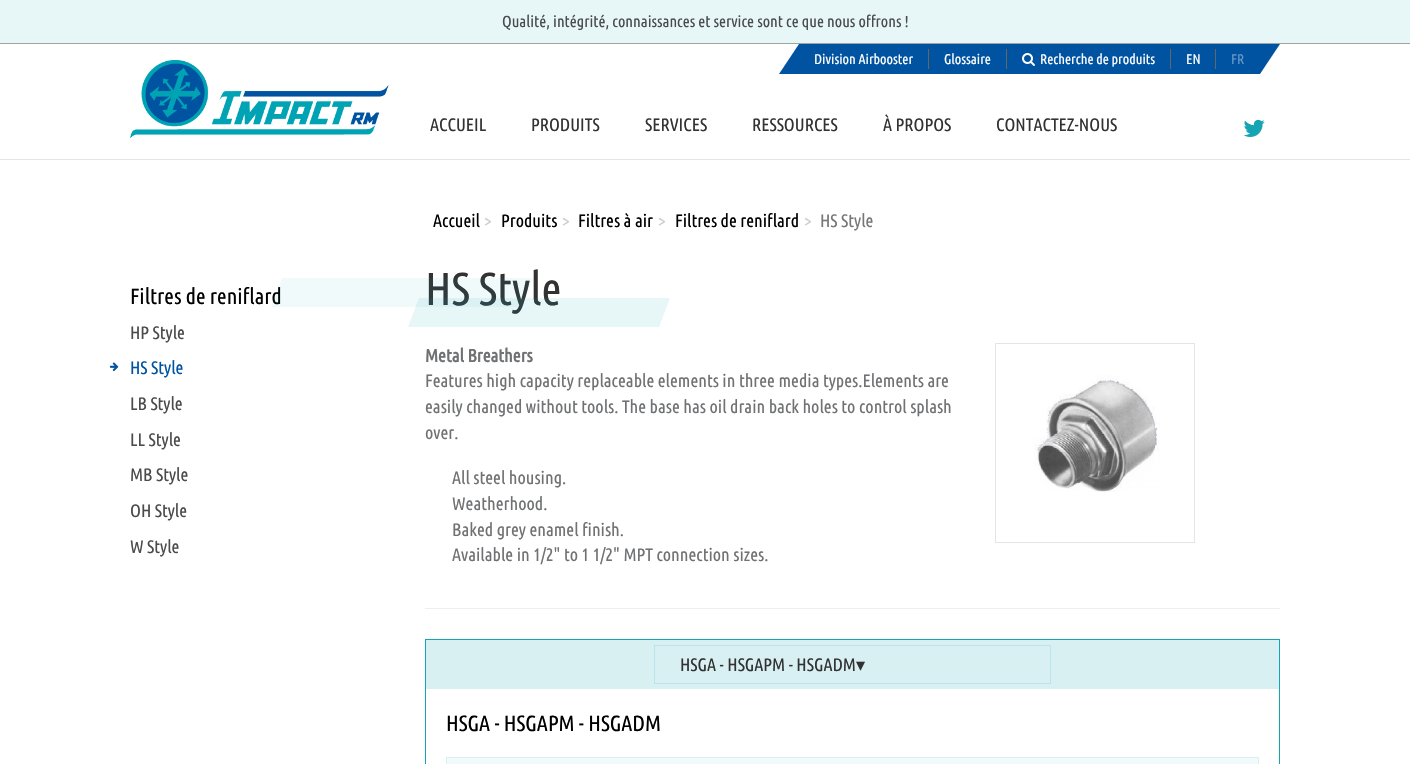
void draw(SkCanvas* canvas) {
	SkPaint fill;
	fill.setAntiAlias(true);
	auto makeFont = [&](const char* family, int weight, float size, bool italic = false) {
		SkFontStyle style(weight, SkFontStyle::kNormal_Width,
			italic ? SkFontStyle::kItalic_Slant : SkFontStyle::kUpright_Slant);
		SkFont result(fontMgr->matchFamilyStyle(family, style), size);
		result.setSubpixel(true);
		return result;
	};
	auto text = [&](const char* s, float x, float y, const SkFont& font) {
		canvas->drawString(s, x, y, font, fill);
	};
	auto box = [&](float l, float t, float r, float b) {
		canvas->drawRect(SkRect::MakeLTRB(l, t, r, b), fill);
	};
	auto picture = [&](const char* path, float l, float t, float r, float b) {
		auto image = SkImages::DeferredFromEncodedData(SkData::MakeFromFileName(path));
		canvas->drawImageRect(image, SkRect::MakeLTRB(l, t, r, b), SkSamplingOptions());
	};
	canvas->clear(0xFFFFFFFF);
	fill.setColor(0xFFE7F6F7);
	box(0, 0, 1410, 43);
	fill.setColor(0xFFA1A2A2);
	box(0, 43, 1410, 44);
	fill.setColor(0xFF0053A0);
	canvas->drawPath(SkPathBuilder().moveTo(799, 74).lineTo(779, 74).lineTo(799, 44).close().detach(), fill);
	box(799, 44, 1260, 74);
	fill.setColor(0xFF666666);
	box(928, 49, 929, 69);
	box(1006, 49, 1007, 69);
	picture("image0.png", 1022, 53, 1035, 66);
	box(1215, 49, 1216, 69);
	box(1170, 49, 1171, 69);
	fill.setColor(0xFF0053A0);
	canvas->drawPath(SkPathBuilder().moveTo(1260, 44).lineTo(1280, 44).lineTo(1260, 74).close().detach(), fill);
	fill.setColor(0xFFE5E5E5);
	box(0, 159, 1410, 160);
	picture("image1.png", 130, 60, 389, 138);
	picture("image2.png", 1243, 119, 1265, 137);
	picture("image3.png", 110, 362, 119, 372);
	fill.setColor(0xFFEFEFEF);
	box(425, 608, 1280, 609);
	fill.setStyle(SkPaint::kStroke_Style);
	fill.setStrokeWidth(1);
	fill.setColor(0xFFE5E5E5);
	canvas->drawRect(SkRect::MakeLTRB(995.5f, 343.5f, 1194.5f, 542.5f), fill);
	picture("image5.png", 1033, 375, 1160, 492);
	fill.setColor(0xFF14A4B4);
	canvas->drawRect(SkRect::MakeLTRB(425.5f, 639.5f, 1279.5f, 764.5f), fill);
	fill.setStyle(SkPaint::kFill_Style);
	fill.setColor(0xFFD9F0F3);
	box(426, 640, 1279, 689);
	fill.setStyle(SkPaint::kStroke_Style);
	fill.setColor(0xFFB9E4E9);
	canvas->drawRect(SkRect::MakeLTRB(654.5f, 645.5f, 1050.5f, 683.5f), fill);
	fill.setColor(0xFFD9F0F3);
	canvas->drawRect(SkRect::MakeLTRB(446.5f, 757.5f, 1258.5f, 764.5f), fill);
	fill.setStyle(SkPaint::kFill_Style);
	fill.setColor(0xFFF1FAFB);
	box(447, 758, 1258, 764);
	auto font1 = makeFont("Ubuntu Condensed", 400, 16);
	fill.setColor(0xFF4A4B4C);
	text("Qualité, intégrité, connaissances et service sont ce que nous offrons !", 502, 27, font1);
	auto font2 = makeFont("Ubuntu Condensed", 400, 14);
	fill.setColor(0xFFFFFFFF);
	text("Division Airbooster", 814, 64, font2);
	text("Glossaire", 944, 64, font2);
	text("Recherche de produits", 1040, 64, font2);
	text("EN", 1186, 64, font2);
	fill.setColor(0xFF6698C6);
	text("FR", 1231, 64, font2);
	auto font3 = makeFont("Ubuntu Condensed", 400, 18);
	fill.setColor(0xFF323233);
	text("ACCUEIL", 430, 131, font3);
	text("PRODUITS", 531, 131, font3);
	text("SERVICES", 645, 131, font3);
	text("RESSOURCES", 752, 131, font3);
	text("À PROPOS", 883, 131, font3);
	text("CONTACTEZ-NOUS", 996, 131, font3);
	fill.setColor(0xFF000000);
	text("Accueil", 433, 227, font3);
	fill.setColor(0xFFCCCCCC);
	text(">", 484, 227, font3);
	fill.setColor(0xFF000000);
	text("Produits", 501, 227, font3);
	fill.setColor(0xFFCCCCCC);
	text(">", 562, 227, font3);
	fill.setColor(0xFF000000);
	text("Filtres à air", 578, 227, font3);
	fill.setColor(0xFFCCCCCC);
	text(">", 658, 227, font3);
	fill.setColor(0xFF000000);
	text("Filtres de reniflard", 675, 227, font3);
	fill.setColor(0xFFCCCCCC);
	text(">", 804, 227, font3);
	fill.setColor(0xFF777777);
	text("HS Style", 820, 227, font3);
	auto font4 = makeFont("Ubuntu Condensed", 400, 22);
	fill.setColor(0xFF000000);
	text("Filtres de reniflard", 130, 304, font4);
	fill.setColor(0xFF4A4B4C);
	text("HP Style", 130, 339, font3);
	fill.setColor(0xFF0053A0);
	text("HS Style", 130, 374, font3);
	fill.setColor(0xFF4A4B4C);
	text("LB Style", 130, 410, font3);
	text("LL Style", 130, 446, font3);
	text("MB Style", 130, 481, font3);
	text("OH Style", 130, 517, font3);
	text("W Style", 130, 553, font3);
	auto font5 = makeFont("Ubuntu Condensed", 400, 46);
	fill.setColor(0xFF323233);
	text("HS Style", 425, 305, font5);
	picture("image4.png", 271, 278, 670, 327);
	auto font6 = makeFont("Ubuntu Condensed", 700, 18);
	fill.setColor(0xFF707173);
	text("Metal Breathers", 425, 362, font6);
	text("Features high capacity replaceable elements in three media types.Elements are", 425, 387, font3);
	text("easily changed without tools. The base has oil drain back holes to control splash", 425, 413, font3);
	text("over.", 425, 439, font3);
	text("All steel housing.", 452, 484, font3);
	text("Weatherhood.", 452, 510, font3);
	text("Baked grey enamel finish.", 452, 536, font3);
	text("Available in 1/2\" to 1 1/2\" MPT connection sizes.", 452, 561, font3);
	fill.setColor(0xFF323233);
	text("HSGA - HSGAPM - HSGADM", 680, 671, font3);
	auto font7 = makeFont("DejaVu Sans", 400, 18);
	text("▾", 856, 671, font7);
	fill.setColor(0xFF000000);
	text("HSGA - HSGAPM - HSGADM", 446, 731, font4);
}
